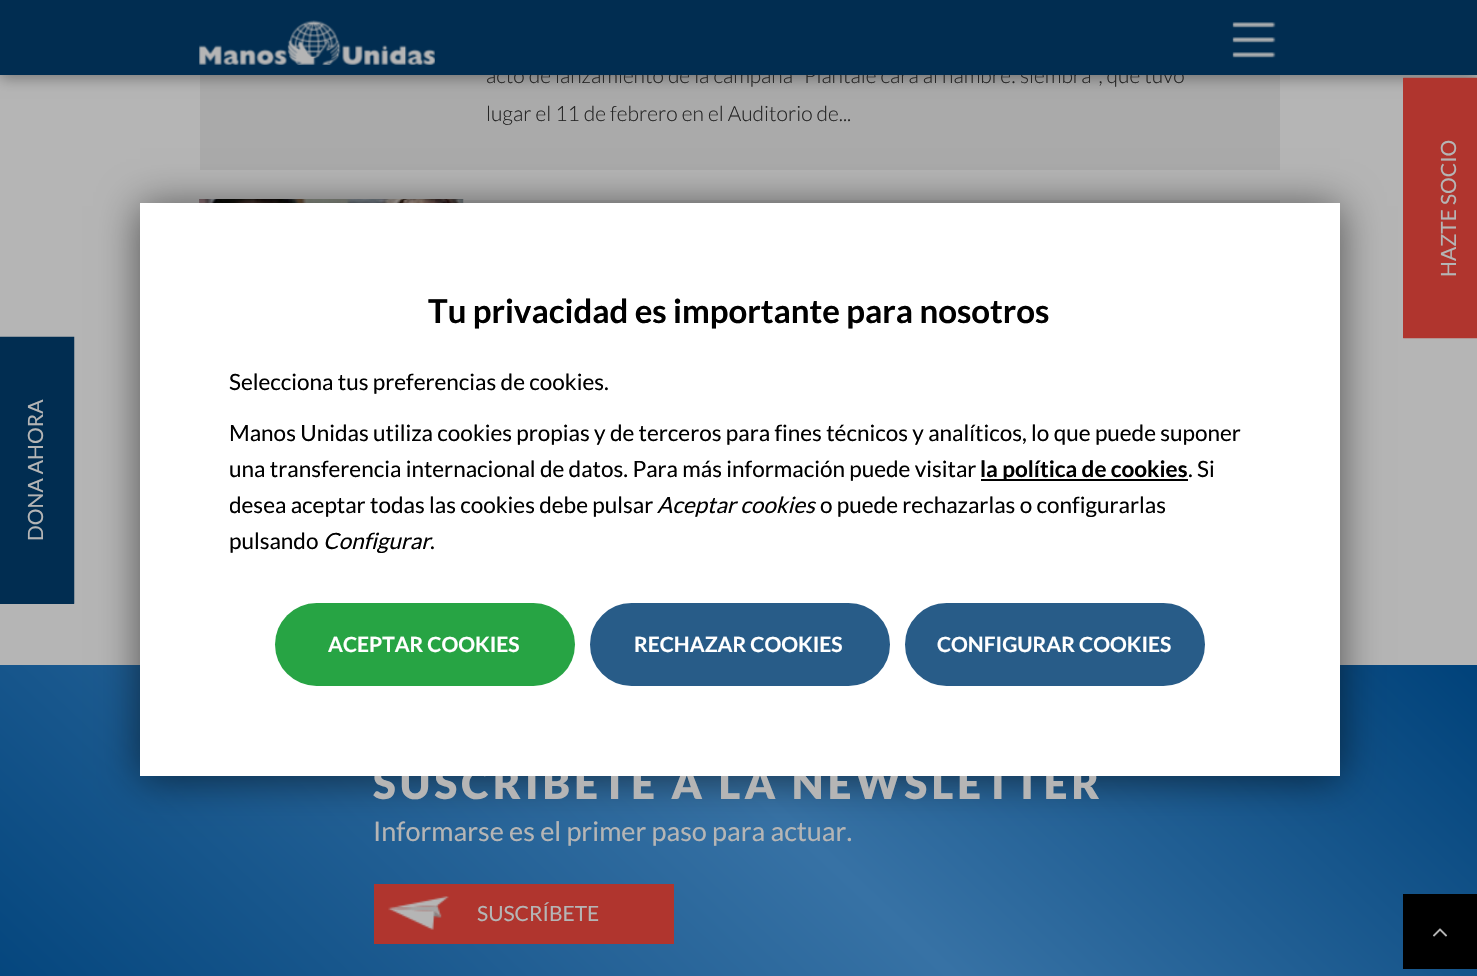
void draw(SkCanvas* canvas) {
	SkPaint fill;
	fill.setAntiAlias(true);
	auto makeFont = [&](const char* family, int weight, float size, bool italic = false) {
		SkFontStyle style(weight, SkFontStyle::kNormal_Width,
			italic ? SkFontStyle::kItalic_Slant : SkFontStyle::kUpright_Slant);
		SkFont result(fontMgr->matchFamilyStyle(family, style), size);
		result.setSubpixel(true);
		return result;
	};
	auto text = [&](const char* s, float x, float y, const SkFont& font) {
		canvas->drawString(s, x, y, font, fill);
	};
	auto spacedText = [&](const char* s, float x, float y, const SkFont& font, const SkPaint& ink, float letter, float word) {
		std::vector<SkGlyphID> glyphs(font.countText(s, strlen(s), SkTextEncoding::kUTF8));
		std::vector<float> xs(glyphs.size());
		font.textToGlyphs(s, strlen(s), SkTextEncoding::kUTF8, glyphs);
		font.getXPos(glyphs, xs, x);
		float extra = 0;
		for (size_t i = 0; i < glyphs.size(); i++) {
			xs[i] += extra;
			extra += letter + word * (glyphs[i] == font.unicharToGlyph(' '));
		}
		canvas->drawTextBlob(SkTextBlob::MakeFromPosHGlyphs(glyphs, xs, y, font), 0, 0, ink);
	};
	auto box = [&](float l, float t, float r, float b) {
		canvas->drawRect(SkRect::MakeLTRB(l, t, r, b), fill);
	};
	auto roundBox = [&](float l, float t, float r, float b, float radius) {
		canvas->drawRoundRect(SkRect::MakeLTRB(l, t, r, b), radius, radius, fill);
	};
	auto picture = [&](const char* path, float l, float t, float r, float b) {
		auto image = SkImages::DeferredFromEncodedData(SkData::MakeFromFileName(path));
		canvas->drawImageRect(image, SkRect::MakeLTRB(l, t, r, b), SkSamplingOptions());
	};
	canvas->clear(0xFFB5B5B5);
	fill.setColor(0xFFAAAAAA);
	box(200, 75, 1280, 170);
	box(463, 200, 1280, 203);
	picture("image0.png", 199, 199, 464, 203);
	{
		const SkColor colors[] = {0xFF00427A, 0xFF3772A5, 0xFF00427A};
		const float stops[] = {0, 0.45f, 1};
		const SkPoint ends[] = {{1183, 389}, {295, 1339}};
		fill.setShader(SkGradientShader::MakeLinear(ends, colors, stops, 3, SkTileMode::kClamp));
		fill.setAlpha(255);
	}
	box(0, 665, 1477, 976);
	fill.setShader(nullptr);
	fill.setColor(0xFFB0352E);
	box(374, 884, 674, 944);
	picture("image1.png", 388, 896, 449, 930);
	fill.setColor(0xFF000000);
	box(1403, 894, 1477, 969);
	picture("image2.png", 1432, 928, 1448, 937);
	fill.setColor(0x59000000);
	fill.setMaskFilter(SkMaskFilter::MakeBlur(kNormal_SkBlurStyle, 7));
	canvas->drawRect(SkRect::MakeLTRB(0, 3, 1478, 78), fill);
	fill.setMaskFilter(nullptr);
	fill.setColor(0xFFB0352E);
	box(1403, 78, 1477, 338);
	fill.setStyle(SkPaint::kStroke_Style);
	fill.setStrokeWidth(1.5f);
	canvas->drawPath(SkPathBuilder().moveTo(1404, 337.5f).lineTo(1404, 78.5f).lineTo(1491.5f, 78.5f).lineTo(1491.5f, 337.5f).close().detach(), fill);
	fill.setStyle(SkPaint::kFill_Style);
	fill.setColor(0xFF012D51);
	box(0, 338, 74, 604);
	fill.setStyle(SkPaint::kStroke_Style);
	canvas->drawPath(SkPathBuilder().moveTo(-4.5f, 603).lineTo(-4.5f, 337.5f).lineTo(73.5f, 337.5f).lineTo(73.5f, 603).close().detach(), fill);
	fill.setStyle(SkPaint::kFill_Style);
	fill.setColor(0x8C000000);
	fill.setMaskFilter(SkMaskFilter::MakeBlur(kNormal_SkBlurStyle, 19.5f));
	canvas->drawRect(SkRect::MakeLTRB(140, 206, 1340, 779), fill);
	fill.setMaskFilter(nullptr);
	auto font1 = makeFont("Lato", 300, 21);
	fill.setColor(0xFF242424);
	text("acto de lanzamiento de la campaña ”Plántale cara al hambre: siembra”, que tuvo", 486, 83, font1);
	text("lugar el 11 de febrero en el Auditorio de...", 486, 121, font1);
	auto font2 = makeFont("Lato", 900, 42);
	fill.setColor(0xFFB5B5B5);
	spacedText("SUSCRÍBETE A LA NEWSLETTER", 373, 799, font2, fill, 4.1f, 0);
	auto font3 = makeFont("Lato", 400, 27);
	text("Informarse es el primer paso para actuar.", 373, 841, font3);
	auto font4 = makeFont("Lato", 400, 21);
	text("SUSCRÍBETE", 477, 921, font4);
	fill.setColor(0xFF012D51);
	box(0, 0, 1477, 75);
	picture("image3.png", 199, 20, 435, 65);
	picture("image4.png", 1232, 22, 1276, 58);
	fill.setColor(0xFFB5B5B5);
	canvas->save();
	canvas->rotate(-90, 1456, 277);
	text("HAZTE SOCIO", 1456, 277, font4);
	canvas->restore();
	canvas->save();
	canvas->rotate(-90, 43, 541);
	text("DONA AHORA", 43, 541, font4);
	canvas->restore();
	fill.setColor(0xFFFFFFFF);
	box(140, 203, 1340, 776);
	auto font5 = makeFont("Lato", 700, 33);
	fill.setColor(0xFF000000);
	text("Tu privacidad es importante para nosotros", 428, 323, font5);
	auto font6 = makeFont("Lato", 400, 22.5f);
	text("Selecciona tus preferencias de cookies.", 229, 390, font6);
	text("Manos Unidas utiliza cookies propias y de terceros para fines técnicos y analíticos, lo que puede suponer", 229, 441, font6);
	text("una transferencia internacional de datos. Para más información puede visitar", 229, 477, font6);
	box(981, 479, 1188, 481);
	auto font7 = makeFont("Lato", 700, 22.5f);
	text("la política de cookies", 980, 477, font7);
	text(". Si", 1188, 477, font6);
	canvas->save();
	canvas->clipRect(SkRect::MakeLTRB(230, 293, 1250, 686));
	text("desea aceptar todas las cookies debe pulsar", 229, 513, font6);
	canvas->restore();
	auto font8 = makeFont("Lato", 400, 22.5f, true);
	text("Aceptar cookies", 657, 513, font8);
	text("o puede rechazarlas o configurarlas", 820, 513, font6);
	text("pulsando", 229, 549, font6);
	text("Configurar", 323, 549, font8);
	text(".", 430, 549, font6);
	fill.setColor(0xFF27A444);
	roundBox(275, 603, 575, 686, 41.5f);
	auto font9 = makeFont("Lato", 700, 21);
	fill.setColor(0xFFFFFFFF);
	text("ACEPTAR COOKIES", 328, 652, font9);
	fill.setColor(0xFF285C88);
	canvas->drawRoundRect(SkRect::MakeLTRB(591, 604, 889, 685), 40.5f, 40.5f, fill);
	fill.setStyle(SkPaint::kStroke_Style);
	fill.setStrokeWidth(2);
	canvas->drawRoundRect(SkRect::MakeLTRB(591, 604, 889, 685), 40.5f, 40.5f, fill);
	fill.setStyle(SkPaint::kFill_Style);
	fill.setColor(0xFFFFFFFF);
	text("RECHAZAR COOKIES", 634, 652, font9);
	fill.setColor(0xFF285C88);
	canvas->drawRoundRect(SkRect::MakeLTRB(906, 604, 1204, 685), 40.5f, 40.5f, fill);
	fill.setStyle(SkPaint::kStroke_Style);
	canvas->drawRoundRect(SkRect::MakeLTRB(906, 604, 1204, 685), 40.5f, 40.5f, fill);
	fill.setStyle(SkPaint::kFill_Style);
	fill.setColor(0xFFFFFFFF);
	text("CONFIGURAR COOKIES", 937, 652, font9);
}
